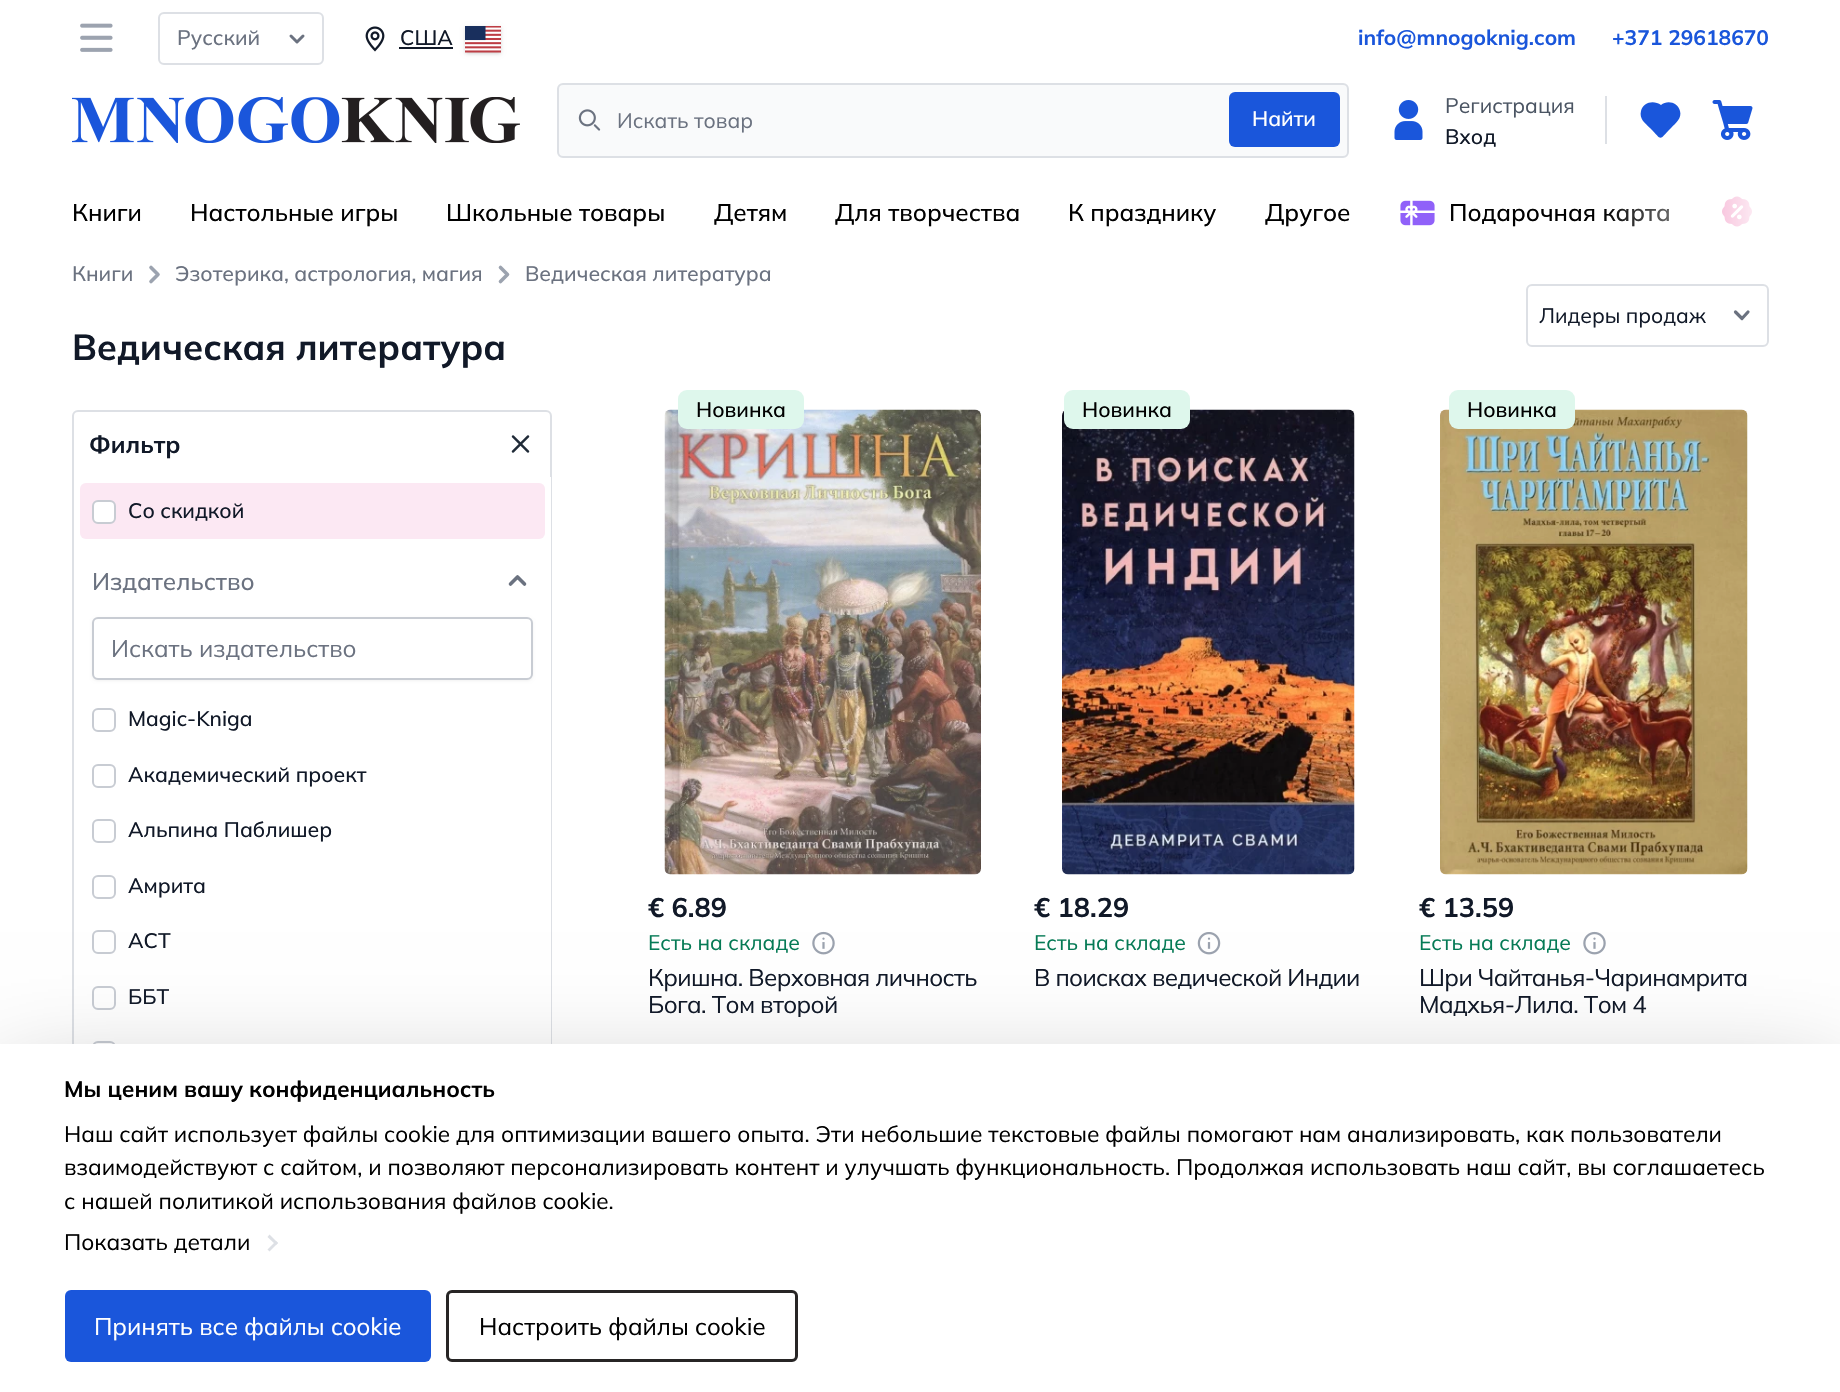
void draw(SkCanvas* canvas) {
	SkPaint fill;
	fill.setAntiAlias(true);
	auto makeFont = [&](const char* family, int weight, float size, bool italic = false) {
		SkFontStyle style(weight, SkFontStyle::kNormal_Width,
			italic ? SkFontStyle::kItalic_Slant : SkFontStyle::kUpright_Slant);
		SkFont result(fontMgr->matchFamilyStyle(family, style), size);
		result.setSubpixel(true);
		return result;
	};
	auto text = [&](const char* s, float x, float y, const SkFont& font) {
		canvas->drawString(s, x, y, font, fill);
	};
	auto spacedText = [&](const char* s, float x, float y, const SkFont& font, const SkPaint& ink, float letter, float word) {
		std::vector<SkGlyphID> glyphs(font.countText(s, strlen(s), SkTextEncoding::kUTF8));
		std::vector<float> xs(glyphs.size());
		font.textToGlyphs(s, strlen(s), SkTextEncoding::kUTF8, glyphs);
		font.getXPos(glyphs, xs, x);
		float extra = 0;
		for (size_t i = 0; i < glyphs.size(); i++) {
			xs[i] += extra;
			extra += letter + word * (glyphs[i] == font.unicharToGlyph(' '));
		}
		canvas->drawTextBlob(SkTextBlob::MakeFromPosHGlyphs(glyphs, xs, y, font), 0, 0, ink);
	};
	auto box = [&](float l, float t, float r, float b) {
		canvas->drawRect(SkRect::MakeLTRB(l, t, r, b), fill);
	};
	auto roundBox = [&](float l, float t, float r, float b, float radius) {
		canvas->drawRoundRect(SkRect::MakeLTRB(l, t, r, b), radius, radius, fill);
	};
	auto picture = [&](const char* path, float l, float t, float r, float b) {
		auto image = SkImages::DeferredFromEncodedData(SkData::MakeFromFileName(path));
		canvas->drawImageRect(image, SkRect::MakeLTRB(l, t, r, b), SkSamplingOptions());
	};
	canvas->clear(0xFFFFFFFF);
	picture("image0.png", 80, 23, 113, 52);
	fill.setStyle(SkPaint::kStroke_Style);
	fill.setStrokeWidth(2);
	fill.setColor(0xFFDDE0E5);
	canvas->drawRoundRect(SkRect::MakeLTRB(159, 13, 323, 64), 5, 5, fill);
	fill.setStrokeWidth(3);
	fill.setStrokeCap(SkPaint::kRound_Cap);
	fill.setStrokeJoin(SkPaint::kRound_Join);
	fill.setColor(0xFF6B7280);
	canvas->drawPath(SkPathBuilder().moveTo(291, 36).lineTo(297, 42).lineTo(303, 36).detach(), fill);
	picture("image1.png", 365, 26, 385, 52);
	fill.setStyle(SkPaint::kFill_Style);
	fill.setColor(0xFF111928);
	box(399, 47, 453, 49);
	fill.setColor(0x1A000000);
	fill.setMaskFilter(SkMaskFilter::MakeBlur(kNormal_SkBlurStyle, 1.5f));
	canvas->drawRect(SkRect::MakeLTRB(467, 29, 500, 53), fill);
	fill.setMaskFilter(nullptr);
	fill.setMaskFilter(SkMaskFilter::MakeBlur(kNormal_SkBlurStyle, 2));
	canvas->drawRect(SkRect::MakeLTRB(465, 27, 501, 54), fill);
	fill.setMaskFilter(nullptr);
	picture("image2.png", 465, 26, 501, 53);
	picture("image3.png", 72, 97, 520, 143);
	fill.setColor(0xFFF9FAFB);
	canvas->drawRoundRect(SkRect::MakeLTRB(558, 84, 1348, 157), 5, 5, fill);
	fill.setStyle(SkPaint::kStroke_Style);
	fill.setStrokeWidth(2);
	fill.setStrokeCap(SkPaint::kButt_Cap);
	fill.setStrokeJoin(SkPaint::kMiter_Join);
	fill.setColor(0xFFDDE0E5);
	canvas->drawRoundRect(SkRect::MakeLTRB(558, 84, 1348, 157), 5, 5, fill);
	picture("image4.png", 578, 109, 601, 131);
	fill.setStyle(SkPaint::kFill_Style);
	fill.setColor(0xFF1A56DB);
	roundBox(1229, 92, 1340, 147, 6);
	picture("image5.png", 1394, 100, 1423, 140);
	fill.setColor(0xFFDDE0E5);
	box(1605, 96, 1607, 144);
	fill.setColor(0xFF1A56DB);
	canvas->drawPath(SkPathBuilder().moveTo(1680, 111).cubicTo(1678, 102, 1667, 100, 1661, 105).cubicTo(1654, 100, 1643, 102, 1641, 111).cubicTo(1639, 119, 1645, 123, 1650, 128).cubicTo(1663, 141, 1658, 141, 1671, 128).cubicTo(1676, 123, 1682, 118, 1680, 111).close().detach(), fill);
	picture("image6.png", 1712, 100, 1753, 140);
	picture("image7.png", 1400, 200, 1435, 226);
	picture("image8.png", 1722, 196, 1752, 227);
	fill.setStyle(SkPaint::kStroke_Style);
	fill.setStrokeWidth(3.6f);
	fill.setStrokeCap(SkPaint::kRound_Cap);
	fill.setStrokeJoin(SkPaint::kRound_Join);
	fill.setColor(0xFF9CA3AF);
	canvas->drawPath(SkPathBuilder().moveTo(151, 281.5f).lineTo(158, 274.5f).lineTo(151, 267.5f).detach(), fill);
	canvas->drawPath(SkPathBuilder().moveTo(500.5f, 281.5f).lineTo(507.5f, 274.5f).lineTo(500.5f, 267.5f).detach(), fill);
	fill.setStrokeWidth(3.2f);
	fill.setColor(0xFF6B7280);
	canvas->drawPath(SkPathBuilder().moveTo(1735.5f, 312).lineTo(1742, 318.5f).lineTo(1748, 312).detach(), fill);
	fill.setStrokeWidth(2);
	fill.setStrokeCap(SkPaint::kButt_Cap);
	fill.setStrokeJoin(SkPaint::kMiter_Join);
	fill.setColor(0xFFDDE0E5);
	canvas->drawRoundRect(SkRect::MakeLTRB(1527, 285, 1768, 346), 5, 5, fill);
	canvas->drawRoundRect(SkRect::MakeLTRB(73, 411, 551, 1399), 5, 5, fill);
	picture("image9.png", 511, 435, 530, 453);
	fill.setStyle(SkPaint::kFill_Style);
	fill.setColor(0xFFFFFFFF);
	box(550, 477, 551, 1044);
	fill.setColor(0xFFFCE8F3);
	roundBox(80, 483, 545, 539, 6);
	fill.setColor(0xFFFFFFFF);
	canvas->drawRoundRect(SkRect::MakeLTRB(93, 501, 115, 523), 5, 5, fill);
	fill.setStyle(SkPaint::kStroke_Style);
	fill.setColor(0xFFC8CCD3);
	canvas->drawRoundRect(SkRect::MakeLTRB(93, 501, 115, 523), 5, 5, fill);
	fill.setStrokeWidth(3.6f);
	fill.setStrokeCap(SkPaint::kRound_Cap);
	fill.setStrokeJoin(SkPaint::kRound_Join);
	fill.setColor(0xFF6B7280);
	canvas->drawPath(SkPathBuilder().moveTo(524.5f, 584).lineTo(517.5f, 577).lineTo(510.5f, 584).detach(), fill);
	fill.setStyle(SkPaint::kFill_Style);
	fill.setColor(0x0D000000);
	fill.setMaskFilter(SkMaskFilter::MakeBlur(kNormal_SkBlurStyle, 1.5f));
	canvas->drawRoundRect(SkRect::MakeLTRB(92, 618, 533, 681), 6, 6, fill);
	fill.setMaskFilter(nullptr);
	fill.setColor(0xFFFFFFFF);
	canvas->drawRoundRect(SkRect::MakeLTRB(93, 618, 532, 679), 5, 5, fill);
	fill.setStyle(SkPaint::kStroke_Style);
	fill.setStrokeWidth(2);
	fill.setStrokeCap(SkPaint::kButt_Cap);
	fill.setStrokeJoin(SkPaint::kMiter_Join);
	fill.setColor(0xFFC8CCD3);
	canvas->drawRoundRect(SkRect::MakeLTRB(93, 618, 532, 679), 5, 5, fill);
	canvas->drawRoundRect(SkRect::MakeLTRB(93, 709, 115, 731), 5, 5, fill);
	canvas->drawRoundRect(SkRect::MakeLTRB(93, 765, 115, 787), 5, 5, fill);
	canvas->drawRoundRect(SkRect::MakeLTRB(93, 820, 115, 842), 5, 5, fill);
	canvas->drawRoundRect(SkRect::MakeLTRB(93, 876, 115, 898), 5, 5, fill);
	canvas->drawRoundRect(SkRect::MakeLTRB(93, 931, 115, 953), 5, 5, fill);
	canvas->drawRoundRect(SkRect::MakeLTRB(93, 987, 115, 1009), 5, 5, fill);
	canvas->drawRoundRect(SkRect::MakeLTRB(93, 1042, 115, 1064), 5, 5, fill);
	picture("image10.png", 664, 409, 981, 875);
	fill.setStyle(SkPaint::kFill_Style);
	fill.setColor(0xFFDEF7EC);
	roundBox(678, 390, 804, 429, 9);
	picture("image11.png", 812, 931, 835, 955);
	picture("image12.png", 1062, 409, 1355, 875);
	roundBox(1064, 390, 1190, 429, 9);
	picture("image13.png", 1197, 932, 1221, 955);
	picture("image14.png", 1440, 409, 1748, 875);
	roundBox(1449, 390, 1575, 429, 9);
	picture("image11.png", 1583, 931, 1606, 955);
	fill.setColor(0x4D000000);
	fill.setMaskFilter(SkMaskFilter::MakeBlur(kNormal_SkBlurStyle, 52.5f));
	canvas->drawRect(SkRect::MakeLTRB(0, 1089, 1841, 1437), fill);
	fill.setMaskFilter(nullptr);
	fill.setColor(0xFFFFFFFF);
	box(0, 1044, 1840, 1392);
	fill.setColor(0xFFDDE0E5);
	canvas->drawPath(SkPathBuilder().moveTo(269.5f, 1234.5f).lineTo(278, 1243).lineTo(276, 1245).lineTo(267.5f, 1237).close().detach(), fill);
	canvas->drawPath(SkPathBuilder().moveTo(276, 1241).lineTo(278, 1243).lineTo(269.5f, 1251.5f).lineTo(267.5f, 1249.5f).close().detach(), fill);
	fill.setColor(0xFF1A56DB);
	roundBox(65, 1290, 431, 1362, 6);
	fill.setStyle(SkPaint::kStroke_Style);
	fill.setStrokeWidth(3);
	fill.setColor(0xFF272525);
	canvas->drawRoundRect(SkRect::MakeLTRB(447.5f, 1291.5f, 796.5f, 1360.5f), 4.5f, 4.5f, fill);
	auto font1 = makeFont("Mulish", 500, 21);
	fill.setStyle(SkPaint::kFill_Style);
	fill.setColor(0xFF6B7280);
	text("Русский", 177, 45, font1);
	fill.setColor(0xFF111928);
	text("США", 400, 45, font1);
	auto font2 = makeFont("Mulish", 700, 21);
	fill.setColor(0xFF1A56DB);
	text("info@mnogoknig.com", 1358, 45, font2);
	text("+371 29618670", 1612, 45, font2);
	auto font3 = makeFont("Mulish", 400, 21);
	fill.setColor(0xFF6B7280);
	text("Искать товар", 617, 128, font3);
	fill.setColor(0xFFFFFFFF);
	text("Найти", 1252, 126, font1);
	fill.setColor(0xFF4B5563);
	text("Регистрация", 1445, 113, font3);
	fill.setColor(0xFF111928);
	text("Вход", 1445, 144, font1);
	auto font4 = makeFont("Mulish", 500, 24);
	fill.setColor(0xFF000000);
	text("Книги", 72, 221, font4);
	text("Настольные игры", 190, 221, font4);
	text("Школьные товары", 446, 221, font4);
	text("Детям", 714, 221, font4);
	text("Для творчества", 835, 221, font4);
	text("К празднику", 1068, 221, font4);
	text("Другое", 1265, 221, font4);
	text("Подарочная карта", 1449, 221, font4);
	{
		const SkColor colors[] = {0x00FFFFFF, 0xFFFFFFFF, 0xFFFFFFFF};
		const float stops[] = {0, 0.9f, 1};
		const SkPoint ends[] = {{1601, 212}, {1793, 212}};
		fill.setShader(SkGradientShader::MakeLinear(ends, colors, stops, 3, SkTileMode::kClamp));
		fill.setAlpha(255);
	}
	box(1605, 196, 1752, 227);
	fill.setShader(nullptr);
	fill.setColor(0xFF6B7280);
	text("Книги", 72, 281, font1);
	text("Эзотерика, астрология, магия", 175, 281, font1);
	text("Ведическая литература", 525, 281, font1);
	fill.setColor(0xFF111928);
	text("Лидеры продаж", 1539, 323, font3);
	auto font5 = makeFont("Mulish", 700, 36);
	text("Ведическая литература", 72, 360, font5);
	auto font6 = makeFont("Mulish", 700, 24);
	text("Фильтр", 89, 453, font6);
	text("Со скидкой", 128, 518, font1);
	fill.setColor(0xFF6B7280);
	text("Издательство", 92, 590, font4);
	auto font7 = makeFont("Mulish", 400, 24);
	text("Искать издательство", 111, 657, font7);
	fill.setColor(0xFF111928);
	text("Magic-Kniga", 128, 726, font1);
	text("Академический проект", 128, 782, font1);
	text("Альпина Паблишер", 128, 837, font1);
	text("Амрита", 128, 893, font1);
	text("АСТ", 128, 948, font1);
	text("ББТ", 128, 1004, font1);
	fill.setColor(0xFF000000);
	text("Новинка", 696, 417, font1);
	auto font8 = makeFont("Mulish", 700, 27);
	fill.setColor(0xFF111928);
	text("€ 6.89", 648, 917, font8);
	fill.setColor(0xFF057A55);
	text("Есть на складе", 648, 950, font3);
	fill.setColor(0xFF111928);
	spacedText("Кришна. Верховная личность", 648, 986, font7, fill, -0.6f, 0);
	canvas->save();
	canvas->clipRect(SkRect::MakeLTRB(648, 963, 998, 1017));
	spacedText("Бога. Том второй", 648, 1013, font7, fill, -0.6f, 0);
	canvas->restore();
	fill.setColor(0xFF000000);
	text("Новинка", 1082, 417, font1);
	fill.setColor(0xFF111928);
	text("€ 18.29", 1034, 917, font8);
	fill.setColor(0xFF057A55);
	text("Есть на складе", 1034, 950, font3);
	fill.setColor(0xFF111928);
	spacedText("В поисках ведической Индии", 1034, 986, font7, fill, -0.6f, 0);
	fill.setColor(0xFF000000);
	text("Новинка", 1467, 417, font1);
	fill.setColor(0xFF111928);
	text("€ 13.59", 1419, 917, font8);
	fill.setColor(0xFF057A55);
	text("Есть на складе", 1419, 950, font3);
	fill.setColor(0xFF111928);
	spacedText("Шри Чайтанья-Чаринамрита", 1419, 986, font7, fill, -0.6f, 0);
	spacedText("Мадхья-Лила. Том 4", 1419, 1013, font7, fill, -0.6f, 0);
	auto font9 = makeFont("Mulish", 700, 22.5f);
	fill.setColor(0xFF000000);
	text("Мы ценим вашу конфиденциальность", 64, 1097, font9);
	auto font10 = makeFont("Mulish", 400, 22.5f);
	text("Наш сайт использует файлы cookie для оптимизации вашего опыта. Эти небольшие текстовые файлы помогают нам анализировать, как пользователи", 64, 1142, font10);
	text("взаимодействуют с сайтом, и позволяют персонализировать контент и улучшать функциональность. Продолжая использовать наш сайт, вы соглашаетесь", 64, 1175, font10);
	text("с нашей политикой использования файлов cookie.", 64, 1209, font10);
	text("Показать детали", 64, 1250, font10);
	fill.setColor(0xFFFFFFFF);
	text("Принять все файлы cookie", 94, 1335, font7);
	fill.setColor(0xFF000000);
	text("Настроить файлы cookie", 479, 1335, font7);
}
